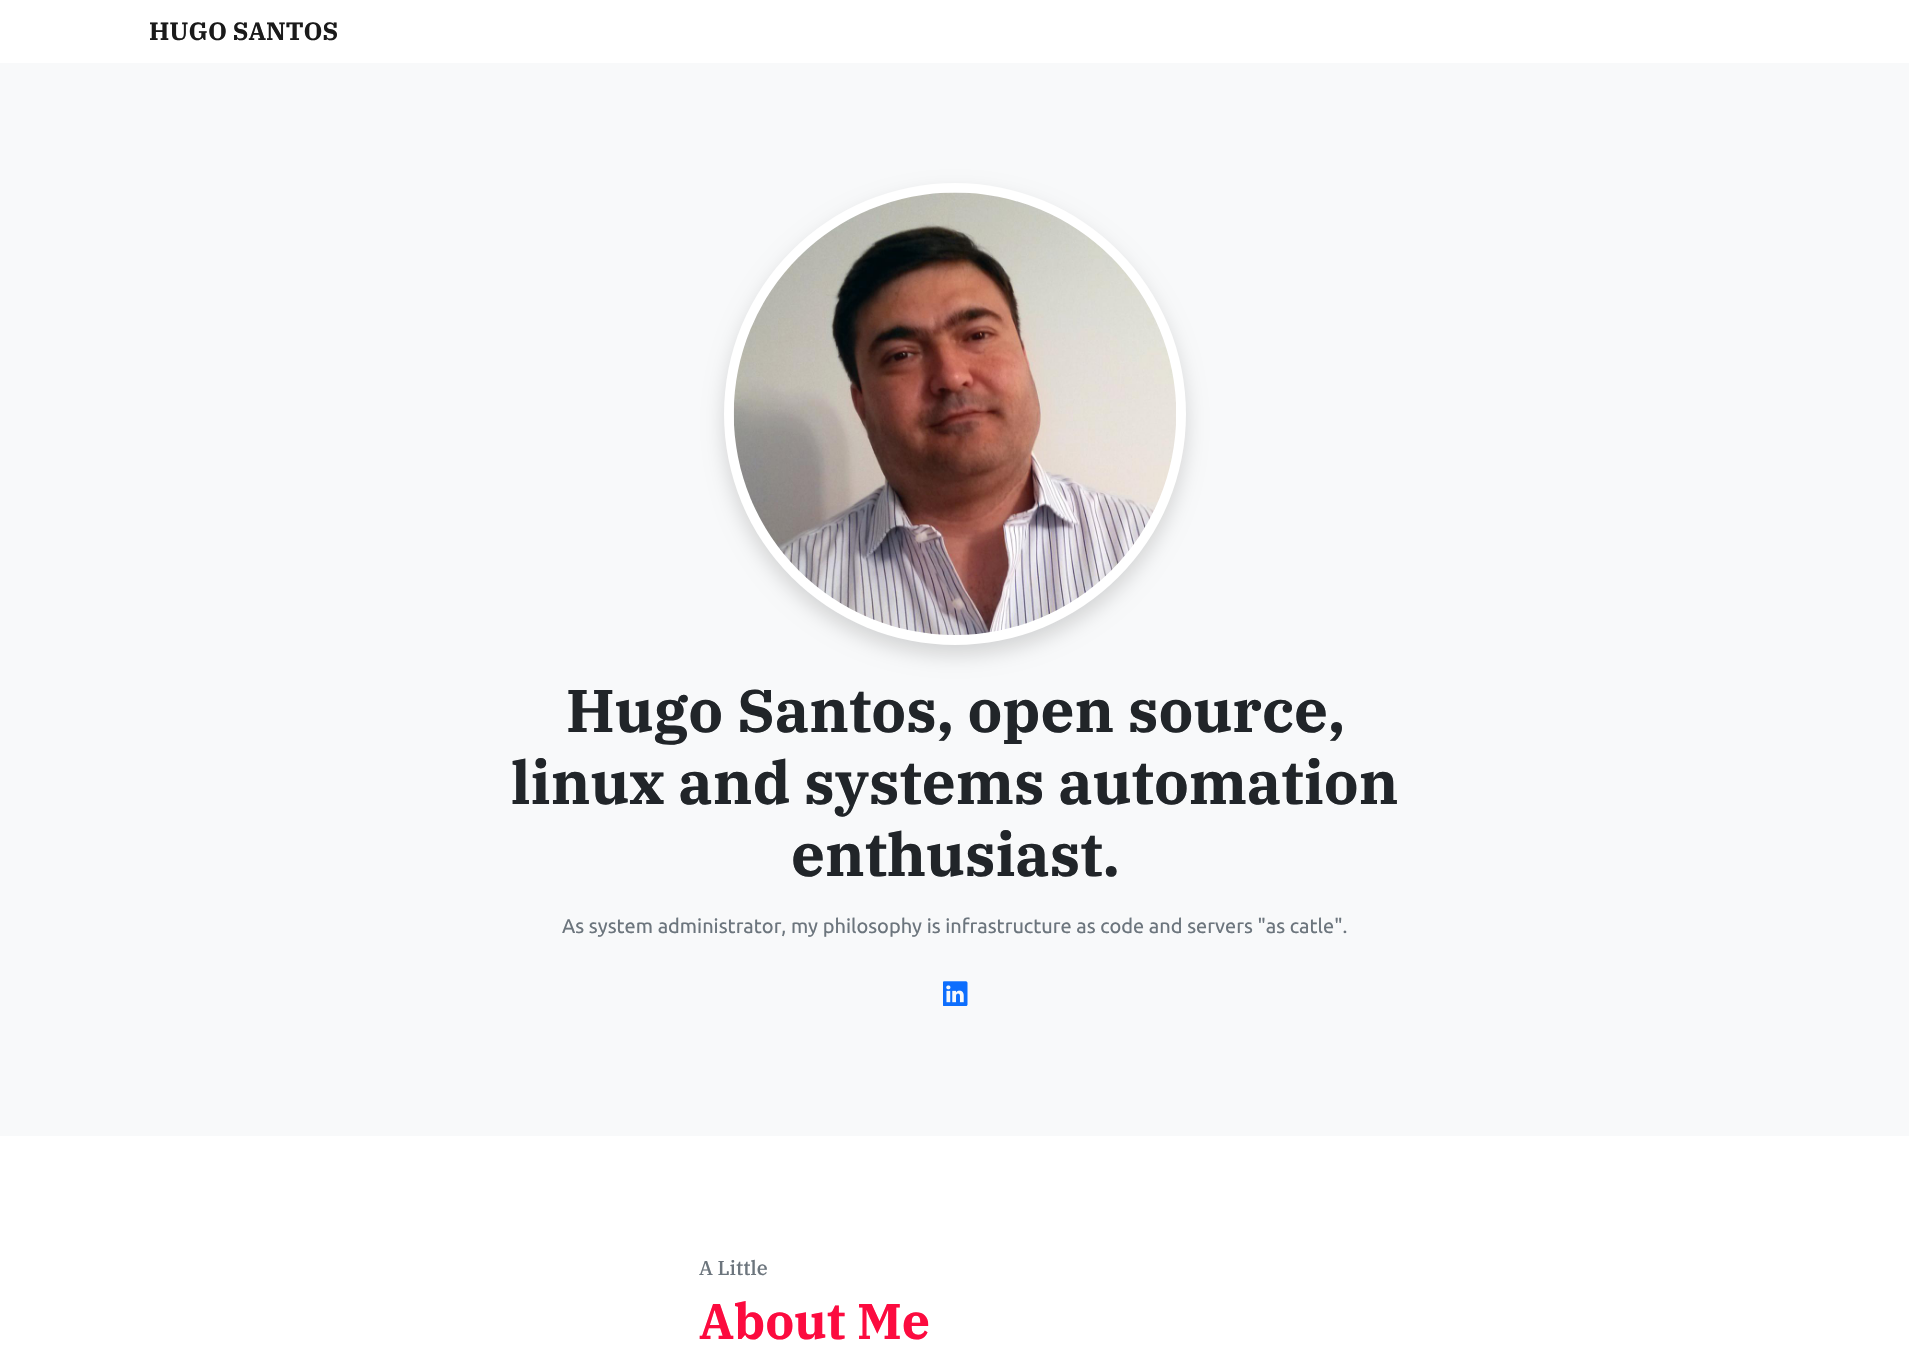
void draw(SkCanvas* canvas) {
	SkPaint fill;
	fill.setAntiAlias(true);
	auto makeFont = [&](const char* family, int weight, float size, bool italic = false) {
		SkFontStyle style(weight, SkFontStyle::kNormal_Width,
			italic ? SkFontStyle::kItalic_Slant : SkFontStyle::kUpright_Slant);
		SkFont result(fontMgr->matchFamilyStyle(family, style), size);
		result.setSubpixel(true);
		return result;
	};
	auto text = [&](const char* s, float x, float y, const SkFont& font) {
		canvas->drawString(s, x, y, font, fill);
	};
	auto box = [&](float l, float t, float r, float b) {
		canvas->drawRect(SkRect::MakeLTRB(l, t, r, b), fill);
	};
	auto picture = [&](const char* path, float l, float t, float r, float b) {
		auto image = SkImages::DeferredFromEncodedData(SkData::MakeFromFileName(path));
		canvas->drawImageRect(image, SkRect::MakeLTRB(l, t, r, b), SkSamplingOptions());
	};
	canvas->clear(0xFFFFFFFF);
	fill.setColor(0xFFF8F9FA);
	box(0, 63, 1909, 1136);
	fill.setColor(0x26000000);
	fill.setMaskFilter(SkMaskFilter::MakeBlur(kNormal_SkBlurStyle, 10));
	canvas->drawRoundRect(SkRect::MakeLTRB(724, 193, 1186, 655), 231, 231, fill);
	fill.setMaskFilter(nullptr);
	fill.setColor(0xFFFFFFFF);
	canvas->drawCircle(955, 414, 231, fill);
	picture("image0.png", 733, 192, 1176, 635);
	picture("image1.png", 943, 981, 968, 1006);
	auto font1 = makeFont("IBM Plex Serif", 700, 25);
	fill.setColor(0xFF1A1A1A);
	text("HUGO SANTOS", 149, 40, font1);
	auto font2 = makeFont("IBM Plex Serif", 700, 60);
	fill.setColor(0xFF212529);
	text("Hugo Santos, open source,", 566, 732, font2);
	text("linux and systems automation", 511, 804, font2);
	text("enthusiast.", 791, 876, font2);
	auto font3 = makeFont("Ubuntu", 400, 20);
	fill.setColor(0xFF6C757D);
	text("As system administrator, my philosophy is infrastructure as code and servers \"as catle\".", 562, 933, font3);
	auto font4 = makeFont("IBM Plex Serif", 500, 20);
	text("A Little", 699, 1275, font4);
	auto font5 = makeFont("IBM Plex Serif", 700, 50);
	fill.setColor(0xFFFC0B3F);
	text("About Me", 699, 1339, font5);
}
